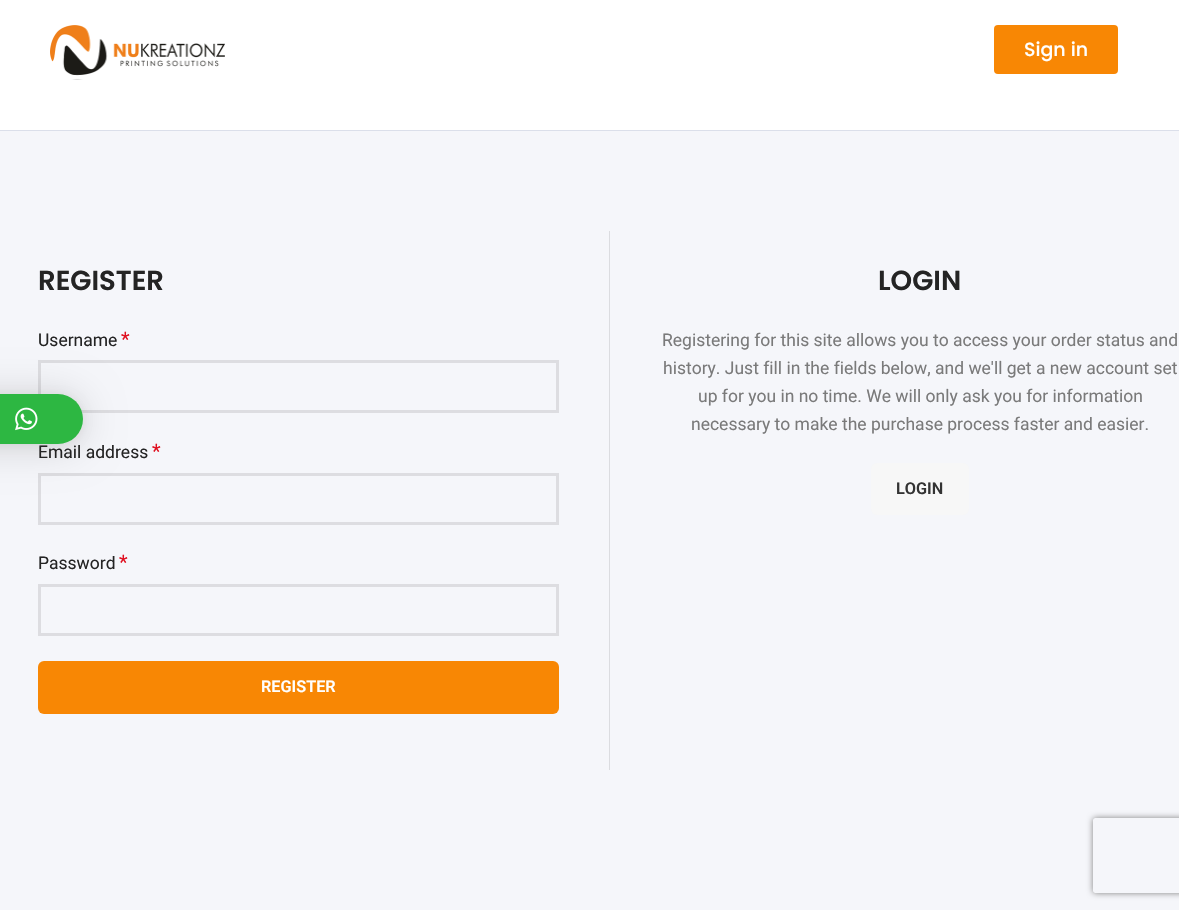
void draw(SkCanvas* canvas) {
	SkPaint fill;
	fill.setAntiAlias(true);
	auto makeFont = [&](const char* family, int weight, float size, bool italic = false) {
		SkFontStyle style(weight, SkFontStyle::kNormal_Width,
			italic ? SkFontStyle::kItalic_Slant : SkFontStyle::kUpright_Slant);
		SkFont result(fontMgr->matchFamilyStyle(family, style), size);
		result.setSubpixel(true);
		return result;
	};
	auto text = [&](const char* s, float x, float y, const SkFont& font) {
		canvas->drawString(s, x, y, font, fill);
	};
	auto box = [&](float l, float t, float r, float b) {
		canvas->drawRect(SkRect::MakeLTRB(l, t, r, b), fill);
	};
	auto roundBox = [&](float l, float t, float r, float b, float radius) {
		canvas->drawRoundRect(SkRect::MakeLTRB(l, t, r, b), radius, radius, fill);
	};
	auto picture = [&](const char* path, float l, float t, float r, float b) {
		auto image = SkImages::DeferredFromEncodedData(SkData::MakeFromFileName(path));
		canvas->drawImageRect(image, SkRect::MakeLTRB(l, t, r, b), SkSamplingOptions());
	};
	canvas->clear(0xFFF5F6FA);
	fill.setColor(0xFFFFFFFF);
	box(0, 0, 1179, 130);
	fill.setColor(0xFFDBDFEA);
	box(0, 130, 1179, 131);
	picture("image0.png", 50, 25, 225, 80);
	fill.setColor(0xFFF88704);
	roundBox(994, 25, 1118, 74, 4);
	fill.setStyle(SkPaint::kStroke_Style);
	fill.setStrokeWidth(3);
	fill.setColor(0xFFDDDDE1);
	canvas->drawRect(SkRect::MakeLTRB(39.5f, 361.5f, 557.5f, 411.5f), fill);
	canvas->drawRect(SkRect::MakeLTRB(39.5f, 474.5f, 557.5f, 523.5f), fill);
	canvas->drawRect(SkRect::MakeLTRB(39.5f, 585.5f, 557.5f, 634.5f), fill);
	fill.setStyle(SkPaint::kFill_Style);
	fill.setColor(0xFFF88704);
	roundBox(38, 661, 559, 714, 6);
	fill.setColor(0xFFDBDCE0);
	box(609, 231, 610, 770);
	fill.setColor(0xFFF7F7F7);
	roundBox(871, 463, 969, 515, 6);
	fill.setColor(0x29000000);
	fill.setMaskFilter(SkMaskFilter::MakeBlur(kNormal_SkBlurStyle, 20));
	canvas->drawRoundRect(SkRect::MakeLTRB(-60, 396, 83, 446), 25, 25, fill);
	fill.setMaskFilter(nullptr);
	fill.setColor(0x0F000000);
	fill.setMaskFilter(SkMaskFilter::MakeBlur(kNormal_SkBlurStyle, 4));
	canvas->drawRoundRect(SkRect::MakeLTRB(-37, 395, 83, 445), 25, 25, fill);
	fill.setMaskFilter(nullptr);
	fill.setColor(0xFF2DB742);
	roundBox(-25, 394, 83, 444, 25);
	picture("image1.png", 15, 407, 38, 431);
	canvas->save();
	canvas->clipPath(SkPathBuilder(SkPathFillType::kEvenOdd).moveTo(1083, 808).lineTo(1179, 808).lineTo(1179, 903).lineTo(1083, 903).close().moveTo(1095.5f, 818).lineTo(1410.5f, 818).cubicTo(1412, 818, 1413, 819, 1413, 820.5f).lineTo(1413, 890.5f).cubicTo(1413, 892, 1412, 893, 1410.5f, 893).lineTo(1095.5f, 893).cubicTo(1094, 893, 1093, 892, 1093, 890.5f).lineTo(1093, 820.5f).cubicTo(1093, 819, 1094, 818, 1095.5f, 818).close().detach(), true);
	fill.setColor(0xFF808080);
	fill.setMaskFilter(SkMaskFilter::MakeBlur(kNormal_SkBlurStyle, 3));
	canvas->drawRoundRect(SkRect::MakeLTRB(1093, 818, 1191, 893), 2.5f, 2.5f, fill);
	fill.setMaskFilter(nullptr);
	canvas->restore();
	auto font1 = makeFont("Poppins", 500, 19);
	fill.setColor(0xFFFFFFFF);
	text("Sign in", 1024, 56, font1);
	auto font2 = makeFont("Poppins", 600, 27.5f);
	fill.setColor(0xFF242424);
	text("REGISTER", 38, 290, font2);
	auto font3 = makeFont("Roboto", 400, 17.5f);
	text("Username", 38, 346, font3);
	auto font4 = makeFont("Roboto", 400, 20);
	fill.setColor(0xFFE01020);
	text("*", 121, 346, font4);
	fill.setColor(0xFF242424);
	text("Email address", 38, 458, font3);
	fill.setColor(0xFFE01020);
	text("*", 152, 458, font4);
	fill.setColor(0xFF242424);
	text("Password", 38, 569, font3);
	fill.setColor(0xFFE01020);
	text("*", 119, 569, font4);
	auto font5 = makeFont("Roboto", 600, 16.25f);
	fill.setColor(0xFFFFFFFF);
	text("REGISTER", 261, 692, font5);
	fill.setColor(0xFF242424);
	text("LOGIN", 878, 290, font2);
	fill.setColor(0xFF7A7A7A);
	text("Registering for this site allows you to access your order status and", 662, 346, font3);
	text("history. Just fill in the fields below, and we'll get a new account set", 663, 374, font3);
	text("up for you in no time. We will only ask you for information", 698, 402, font3);
	text("necessary to make the purchase process faster and easier.", 691, 430, font3);
	fill.setColor(0xFF333333);
	text("LOGIN", 896, 494, font5);
}
